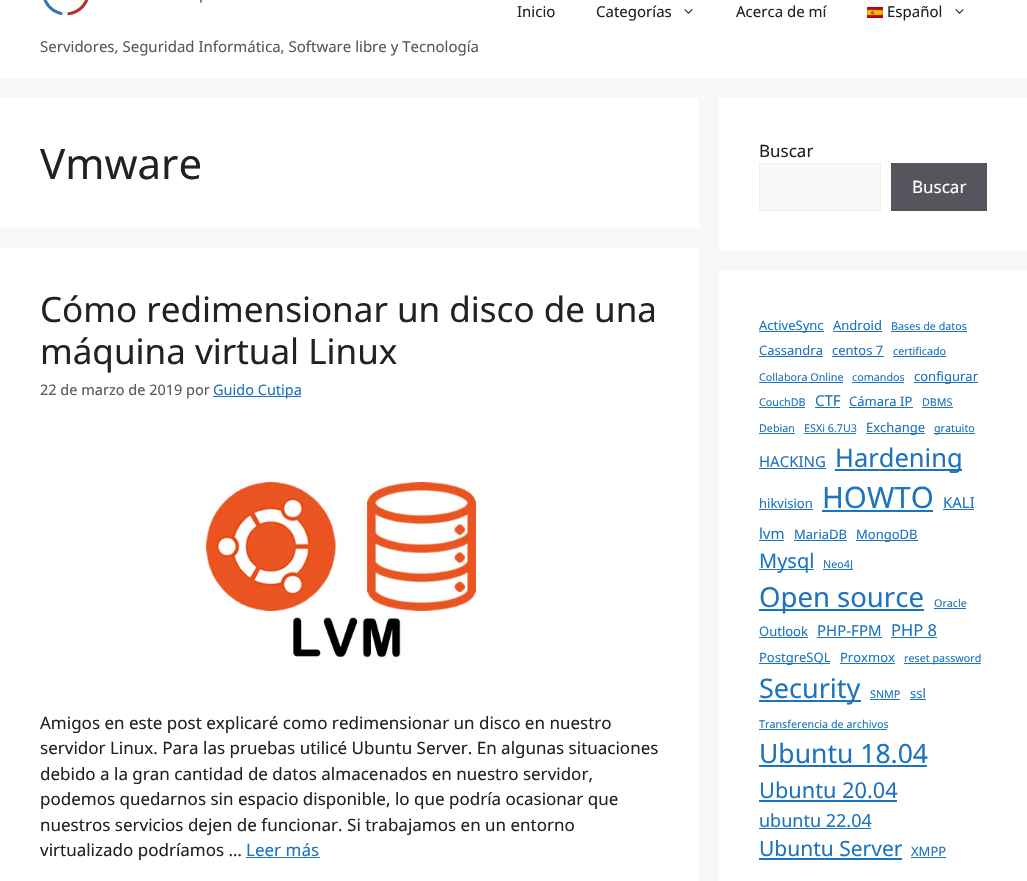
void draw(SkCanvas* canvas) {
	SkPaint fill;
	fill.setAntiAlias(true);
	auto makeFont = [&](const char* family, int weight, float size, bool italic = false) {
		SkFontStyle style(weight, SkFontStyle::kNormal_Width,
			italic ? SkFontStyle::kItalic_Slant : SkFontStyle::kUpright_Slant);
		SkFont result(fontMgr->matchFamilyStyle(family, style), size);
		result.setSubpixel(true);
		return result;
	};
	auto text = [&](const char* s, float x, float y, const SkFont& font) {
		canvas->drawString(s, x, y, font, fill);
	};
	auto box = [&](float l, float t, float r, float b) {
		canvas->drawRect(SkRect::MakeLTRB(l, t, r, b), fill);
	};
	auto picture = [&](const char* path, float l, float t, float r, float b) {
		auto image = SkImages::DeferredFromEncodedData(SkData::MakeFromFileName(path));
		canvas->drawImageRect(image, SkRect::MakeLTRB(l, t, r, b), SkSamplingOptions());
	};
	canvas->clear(0xFFF7F8F9);
	fill.setColor(0xFFFFFFFF);
	box(0, 0, 1027, 78);
	picture("image0.png", 684, 9, 693, 14);
	picture("image1.png", 867, 7, 883, 18);
	picture("image0.png", 955, 9, 964, 14);
	picture("image2.png", 43, 0, 202, 16);
	box(0, 98, 699, 228);
	box(0, 248, 699, 881);
	fill.setColor(0xFF1E73BE);
	box(213, 396, 301, 397);
	picture("image3.png", 205, 482, 481, 658);
	box(246, 857, 320, 858);
	fill.setColor(0xFFFFFFFF);
	box(719, 98, 1027, 251);
	fill.setColor(0xFFF7F8F9);
	canvas->drawRect(SkRect::MakeLTRB(759.5f, 163.5f, 880.5f, 210.5f), fill);
	fill.setStyle(SkPaint::kStroke_Style);
	fill.setStrokeWidth(1);
	fill.setColor(0xFFF0F0F0);
	canvas->drawRect(SkRect::MakeLTRB(759.5f, 163.5f, 880.5f, 210.5f), fill);
	fill.setStyle(SkPaint::kFill_Style);
	fill.setColor(0xFF55555E);
	box(891, 163, 987, 211);
	fill.setColor(0xFFFFFFFF);
	box(719, 271, 1027, 881);
	fill.setColor(0xFF1E73BE);
	box(759, 331, 824, 332);
	box(833, 331, 882, 332);
	box(891, 331, 967, 332);
	box(759, 356, 823, 357);
	box(832, 356, 884, 357);
	box(893, 356, 946, 357);
	box(759, 382, 843, 383);
	box(852, 382, 904, 383);
	box(914, 382, 978, 383);
	box(759, 407, 805, 408);
	box(815, 407, 840, 408);
	box(849, 407, 913, 408);
	box(922, 407, 953, 408);
	box(759, 433, 795, 434);
	box(804, 433, 856, 434);
	box(866, 433, 925, 434);
	box(934, 433, 975, 434);
	box(759, 468, 826, 469);
	box(835, 469, 962, 471);
	box(759, 509, 813, 510);
	box(822, 510, 933, 512);
	box(943, 509, 974, 510);
	box(759, 540, 784, 541);
	box(794, 540, 847, 541);
	box(856, 540, 918, 541);
	box(759, 569, 814, 570);
	box(823, 569, 853, 570);
	box(759, 609, 924, 611);
	box(934, 608, 966, 609);
	box(759, 637, 808, 638);
	box(817, 637, 882, 638);
	box(891, 637, 937, 638);
	box(759, 663, 830, 664);
	box(840, 663, 895, 664);
	box(904, 663, 981, 664);
	box(759, 700, 861, 702);
	box(870, 699, 900, 700);
	box(910, 699, 926, 700);
	box(759, 729, 887, 730);
	box(759, 765, 927, 767);
	box(759, 800, 897, 802);
	box(759, 828, 871, 829);
	box(759, 858, 902, 860);
	box(911, 857, 946, 858);
	auto font1 = makeFont("Noto Sans", 400, 15);
	fill.setColor(0xFF222222);
	text("Inicio", 517, 17, font1);
	text("Categorías", 596, 17, font1);
	text("Acerca de mí", 736, 17, font1);
	text("Español", 887, 17, font1);
	fill.setColor(0xFF575760);
	text("Servidores, Seguridad Informática, Software libre y Tecnología", 40, 52, font1);
	auto font2 = makeFont("Noto Sans", 400, 42);
	fill.setColor(0xFF222222);
	text("Vmware", 40, 179, font2);
	auto font3 = makeFont("Noto Sans", 400, 35);
	text("Cómo redimensionar un disco de una", 40, 322, font3);
	text("máquina virtual Linux", 40, 364, font3);
	auto font4 = makeFont("Noto Sans", 400, 14.5f);
	fill.setColor(0xFF575760);
	text("22 de marzo de 2019 por", 40, 395, font4);
	fill.setColor(0xFF1E73BE);
	text("Guido Cutipa", 213, 395, font4);
	auto font5 = makeFont("Noto Sans", 400, 17);
	fill.setColor(0xFF222222);
	text("Amigos en este post explicaré como redimensionar un disco en nuestro", 40, 729, font5);
	text("servidor Linux. Para las pruebas utilicé Ubuntu Server. En algunas situaciones", 40, 754, font5);
	text("debido a la gran cantidad de datos almacenados en nuestro servidor,", 40, 780, font5);
	text("podemos quedarnos sin espacio disponible, lo que podría ocasionar que", 40, 805, font5);
	text("nuestros servicios dejen de funcionar. Si trabajamos en un entorno", 40, 831, font5);
	text("virtualizado podríamos …", 40, 856, font5);
	fill.setColor(0xFF1E73BE);
	text("Leer más", 246, 856, font5);
	fill.setColor(0xFF222222);
	text("Buscar", 759, 157, font5);
	fill.setColor(0xFFFFFFFF);
	text("Buscar", 912, 193, font5);
	auto font6 = makeFont("Noto Sans", 400, 13);
	fill.setColor(0xFF1E73BE);
	text("ActiveSync", 759, 330, font6);
	text("Android", 833, 330, font6);
	auto font7 = makeFont("Noto Sans", 400, 10.75f);
	text("Bases de datos", 891, 330, font7);
	text("Cassandra", 759, 355, font6);
	text("centos 7", 832, 355, font6);
	text("certificado", 893, 355, font7);
	text("Collabora Online", 759, 381, font7);
	text("comandos", 852, 381, font7);
	text("configurar", 914, 381, font6);
	text("CouchDB", 759, 406, font7);
	text("CTF", 815, 406, font1);
	text("Cámara IP", 849, 406, font6);
	text("DBMS", 922, 406, font7);
	text("Debian", 759, 432, font7);
	text("ESXi 6.7U3", 804, 432, font7);
	text("Exchange", 866, 432, font6);
	text("gratuito", 934, 432, font7);
	text("HACKING", 759, 467, font1);
	auto font8 = makeFont("Noto Sans", 400, 25.5f);
	text("Hardening", 835, 467, font8);
	text("hikvision", 759, 508, font6);
	auto font9 = makeFont("Noto Sans", 400, 29.5f);
	text("HOWTO", 822, 508, font9);
	text("KALI", 943, 508, font1);
	text("lvm", 759, 539, font1);
	text("MariaDB", 794, 539, font6);
	text("MongoDB", 856, 539, font6);
	auto font10 = makeFont("Noto Sans", 400, 20);
	text("Mysql", 759, 568, font10);
	text("Neo4J", 823, 568, font7);
	auto font11 = makeFont("Noto Sans", 400, 27.5f);
	text("Open source", 759, 607, font11);
	text("Oracle", 934, 607, font7);
	text("Outlook", 759, 636, font6);
	text("PHP-FPM", 817, 636, font1);
	auto font12 = makeFont("Noto Sans", 400, 16.5f);
	text("PHP 8", 891, 636, font12);
	text("PostgreSQL", 759, 662, font6);
	text("Proxmox", 840, 662, font6);
	text("reset password", 904, 662, font7);
	auto font13 = makeFont("Noto Sans", 400, 27);
	text("Security", 759, 698, font13);
	text("SNMP", 870, 698, font7);
	text("ssl", 910, 698, font6);
	text("Transferencia de archivos", 759, 728, font7);
	auto font14 = makeFont("Noto Sans", 400, 26.5f);
	text("Ubuntu 18.04", 759, 763, font14);
	auto font15 = makeFont("Noto Sans", 400, 21.75f);
	text("Ubuntu 20.04", 759, 798, font15);
	auto font16 = makeFont("Noto Sans", 400, 18);
	text("ubuntu 22.04", 759, 827, font16);
	auto font17 = makeFont("Noto Sans", 400, 21);
	text("Ubuntu Server", 759, 856, font17);
	text("XMPP", 911, 856, font6);
}
